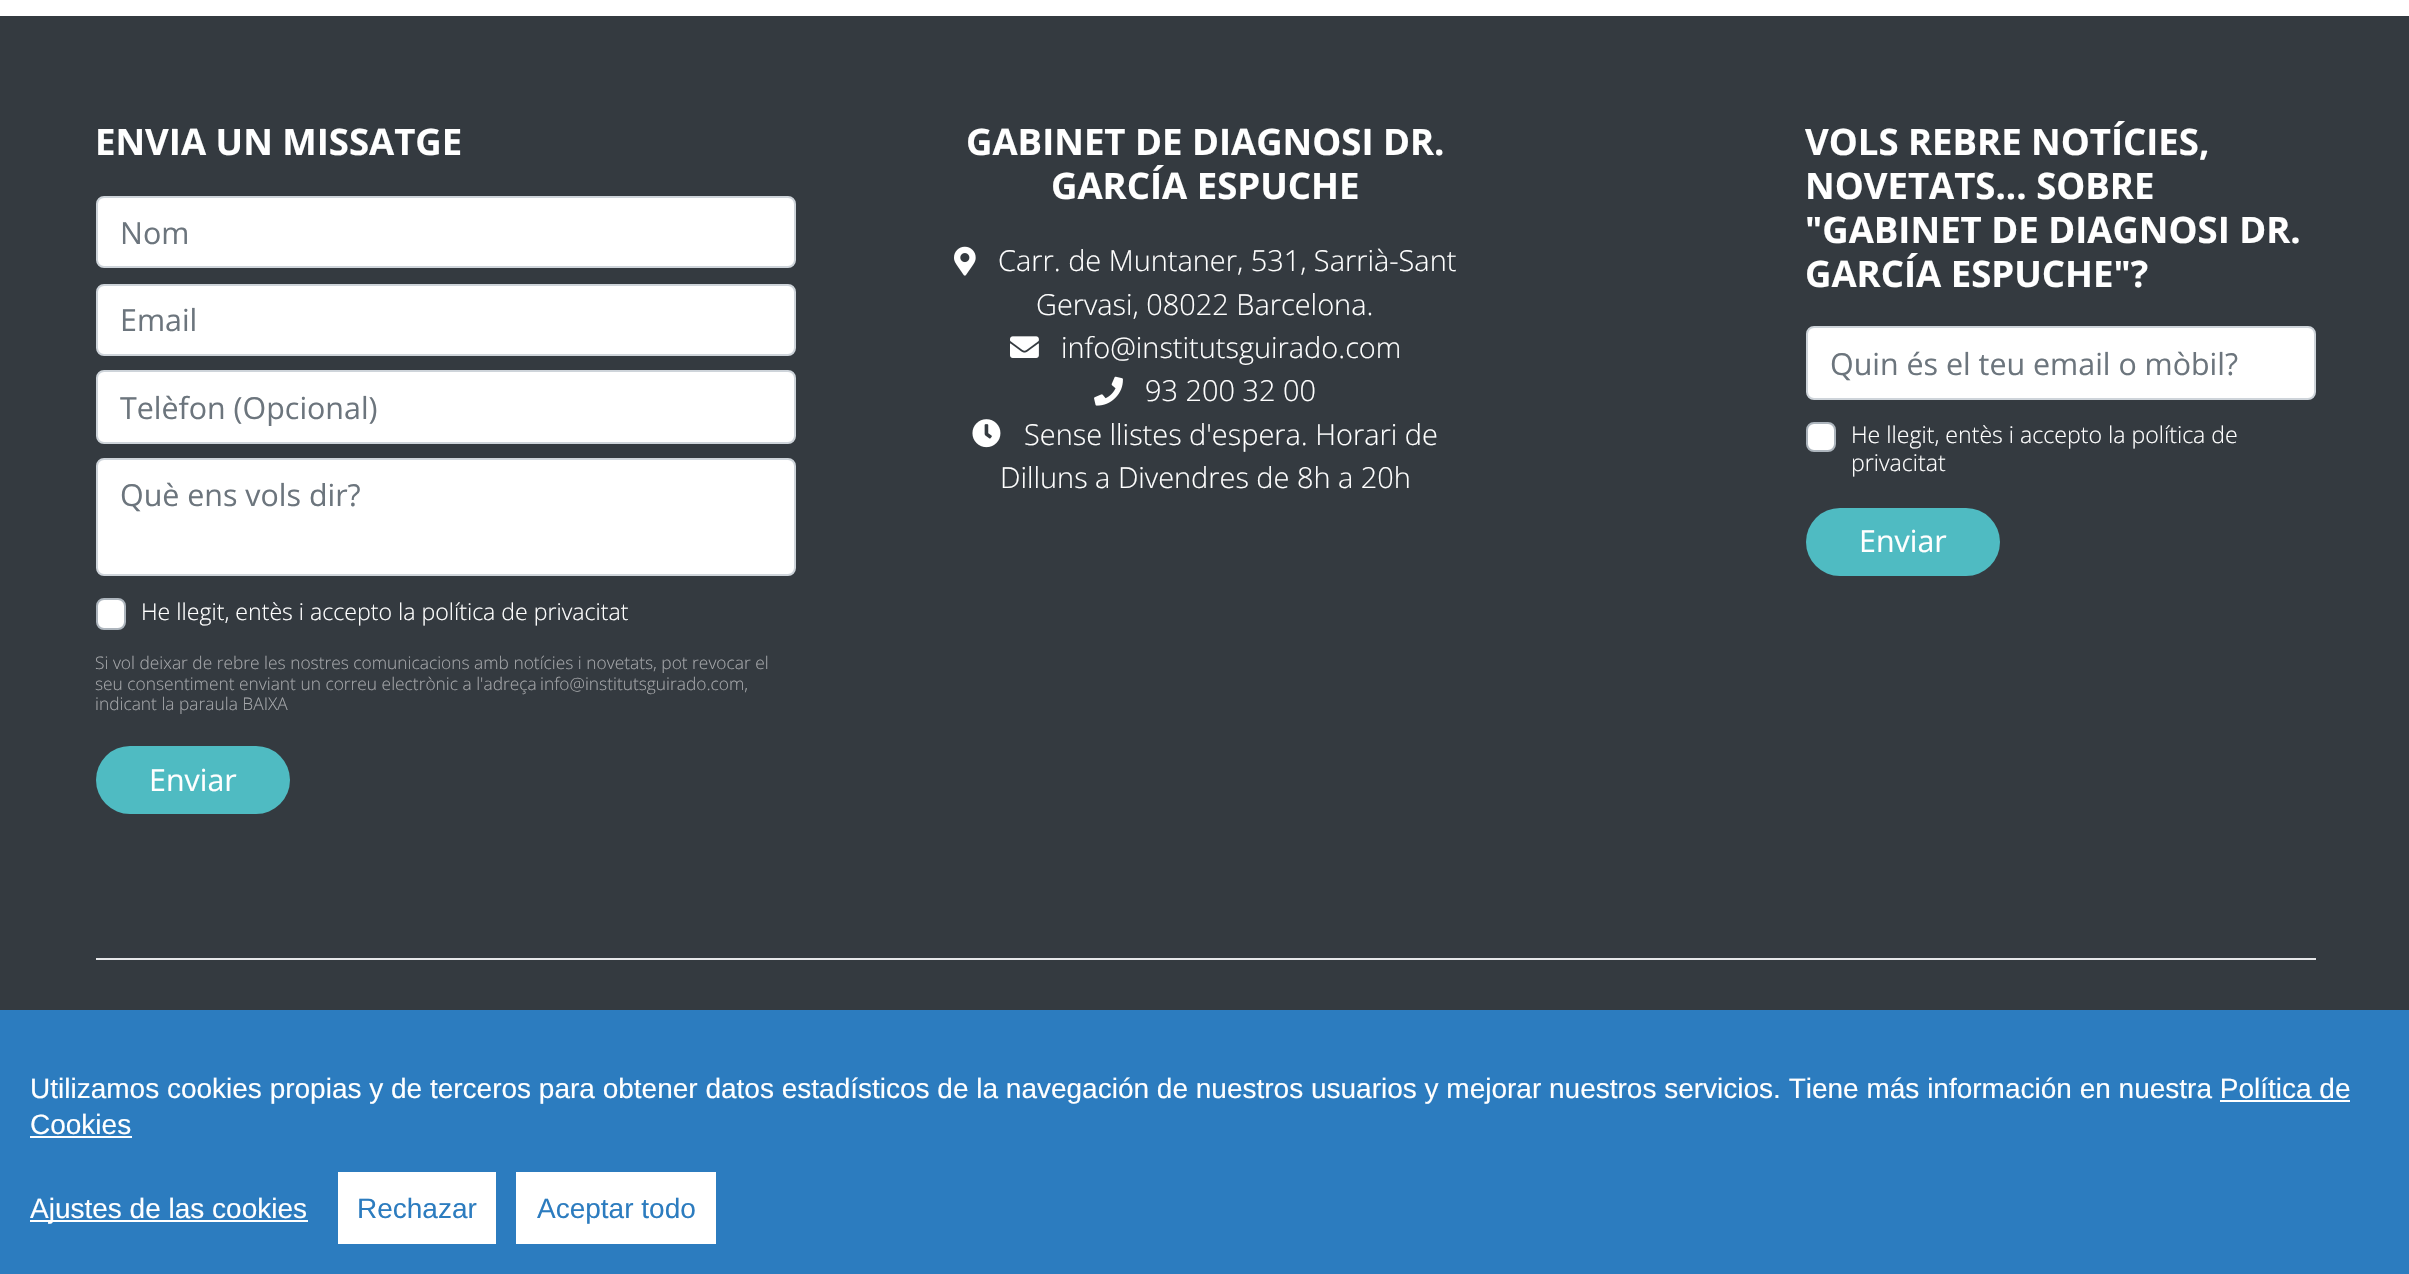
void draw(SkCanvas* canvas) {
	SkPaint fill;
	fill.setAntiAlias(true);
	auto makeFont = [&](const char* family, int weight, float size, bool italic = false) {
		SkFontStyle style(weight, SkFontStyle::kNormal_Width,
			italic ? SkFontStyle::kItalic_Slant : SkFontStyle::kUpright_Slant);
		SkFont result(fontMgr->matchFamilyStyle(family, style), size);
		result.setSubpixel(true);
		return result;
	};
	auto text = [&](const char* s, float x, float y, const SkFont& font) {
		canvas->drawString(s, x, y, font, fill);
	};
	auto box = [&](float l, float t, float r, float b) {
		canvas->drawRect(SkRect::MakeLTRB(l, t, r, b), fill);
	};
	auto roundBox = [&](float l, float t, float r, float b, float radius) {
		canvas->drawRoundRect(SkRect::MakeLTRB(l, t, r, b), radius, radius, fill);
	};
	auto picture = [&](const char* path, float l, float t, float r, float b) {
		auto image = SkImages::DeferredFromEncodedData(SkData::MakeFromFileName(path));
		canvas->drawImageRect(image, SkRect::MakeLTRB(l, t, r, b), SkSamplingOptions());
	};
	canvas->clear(0xFFFFFFFF);
	fill.setColor(0xFF343A40);
	box(0, 16, 2409, 1010);
	fill.setColor(0xFFFFFFFF);
	canvas->drawRoundRect(SkRect::MakeLTRB(97, 197, 795, 267), 7, 7, fill);
	fill.setStyle(SkPaint::kStroke_Style);
	fill.setStrokeWidth(2);
	fill.setColor(0xFFCED4DA);
	canvas->drawRoundRect(SkRect::MakeLTRB(97, 197, 795, 267), 7, 7, fill);
	fill.setStyle(SkPaint::kFill_Style);
	fill.setColor(0xFFFFFFFF);
	canvas->drawRoundRect(SkRect::MakeLTRB(97, 285, 795, 355), 7, 7, fill);
	fill.setStyle(SkPaint::kStroke_Style);
	fill.setColor(0xFFCED4DA);
	canvas->drawRoundRect(SkRect::MakeLTRB(97, 285, 795, 355), 7, 7, fill);
	fill.setStyle(SkPaint::kFill_Style);
	fill.setColor(0xFFFFFFFF);
	canvas->drawRoundRect(SkRect::MakeLTRB(97, 371, 795, 443), 7, 7, fill);
	fill.setStyle(SkPaint::kStroke_Style);
	fill.setColor(0xFFCED4DA);
	canvas->drawRoundRect(SkRect::MakeLTRB(97, 371, 795, 443), 7, 7, fill);
	fill.setStyle(SkPaint::kFill_Style);
	fill.setColor(0xFFFFFFFF);
	canvas->drawRoundRect(SkRect::MakeLTRB(97, 459, 795, 575), 7, 7, fill);
	fill.setStyle(SkPaint::kStroke_Style);
	fill.setColor(0xFFCED4DA);
	canvas->drawRoundRect(SkRect::MakeLTRB(97, 459, 795, 575), 7, 7, fill);
	fill.setStyle(SkPaint::kFill_Style);
	fill.setColor(0xFFFFFFFF);
	canvas->drawRoundRect(SkRect::MakeLTRB(97, 599, 125, 629), 7, 7, fill);
	fill.setStyle(SkPaint::kStroke_Style);
	fill.setColor(0xFFADB5BD);
	canvas->drawRoundRect(SkRect::MakeLTRB(97, 599, 125, 629), 7, 7, fill);
	fill.setStyle(SkPaint::kFill_Style);
	fill.setColor(0xFF4FBBC2);
	roundBox(96, 746, 290, 814, 34);
	picture("image0.png", 954, 246, 976, 276);
	picture("image1.png", 1010, 336, 1039, 358);
	picture("image2.png", 1094, 376, 1123, 406);
	picture("image3.png", 972, 419, 1001, 448);
	fill.setColor(0xFFFFFFFF);
	canvas->drawRoundRect(SkRect::MakeLTRB(1807, 327, 2315, 399), 7, 7, fill);
	fill.setStyle(SkPaint::kStroke_Style);
	fill.setColor(0xFFCED4DA);
	canvas->drawRoundRect(SkRect::MakeLTRB(1807, 327, 2315, 399), 7, 7, fill);
	fill.setStyle(SkPaint::kFill_Style);
	fill.setColor(0xFFFFFFFF);
	canvas->drawRoundRect(SkRect::MakeLTRB(1807, 423, 1835, 451), 7, 7, fill);
	fill.setStyle(SkPaint::kStroke_Style);
	fill.setColor(0xFFADB5BD);
	canvas->drawRoundRect(SkRect::MakeLTRB(1807, 423, 1835, 451), 7, 7, fill);
	fill.setStyle(SkPaint::kFill_Style);
	fill.setColor(0xFF4FBBC2);
	roundBox(1806, 508, 2000, 576, 34);
	fill.setColor(0xFFE6E7E9);
	box(96, 958, 2316, 960);
	fill.setColor(0xFF2C7CBF);
	box(0, 1010, 2409, 1274);
	fill.setColor(0xFFFFFFFF);
	box(2220, 1100, 2350, 1102);
	box(30, 1136, 132, 1138);
	box(30, 1220, 308, 1222);
	box(338, 1172, 496, 1244);
	box(516, 1172, 716, 1244);
	auto font1 = makeFont("Open Sans", 700, 36.5f);
	text("ENVIA UN MISSATGE", 95, 155, font1);
	auto font2 = makeFont("Open Sans", 400, 30.4f);
	fill.setColor(0xFF6C757D);
	text("Nom", 120, 244, font2);
	text("Email", 120, 331, font2);
	canvas->save();
	canvas->clipRect(SkRect::MakeLTRB(120, 386, 770, 426));
	text("Telèfon (Opcional)", 120, 419, font2);
	canvas->restore();
	text("Què ens vols dir?", 120, 506, font2);
	auto font3 = makeFont("Open Sans", 300, 23.1f);
	fill.setColor(0xFFFFFFFF);
	text("He llegit, entès i accepto la política de privacitat", 141, 620, font3);
	auto font4 = makeFont("Open Sans", 300, 17.35f);
	fill.setColor(0xFFA4A6A9);
	text("Si vol deixar de rebre les nostres comunicacions amb notícies i novetats, pot revocar el", 95, 669, font4);
	text("seu consentiment enviant un correu electrònic a l'adreça", 95, 690, font4);
	text("info@institutsguirado.com,", 540, 690, font4);
	text("indicant la paraula BAIXA", 95, 710, font4);
	fill.setColor(0xFFFFFFFF);
	text("Enviar", 149, 791, font2);
	text("GABINET DE DIAGNOSI DR.", 966, 155, font1);
	text("GARCÍA ESPUCHE", 1051, 199, font1);
	auto font5 = makeFont("Open Sans", 300, 28.9f);
	text("Carr. de Muntaner, 531, Sarrià-Sant", 998, 271, font5);
	text("Gervasi, 08022 Barcelona.", 1036, 315, font5);
	text("info@institutsguirado.com", 1061, 358, font5);
	text("93 200 32 00", 1145, 401, font5);
	text("Sense llistes d'espera. Horari de", 1024, 445, font5);
	text("Dilluns a Divendres de 8h a 20h", 1000, 488, font5);
	text("VOLS REBRE NOTÍCIES,", 1805, 155, font1);
	text("NOVETATS... SOBRE", 1805, 199, font1);
	text("\"GABINET DE DIAGNOSI DR.", 1805, 243, font1);
	text("GARCÍA ESPUCHE\"?", 1805, 287, font1);
	fill.setColor(0xFF6C757D);
	text("Quin és el teu email o mòbil?", 1830, 375, font2);
	fill.setColor(0xFFFFFFFF);
	text("He llegit, entès i accepto la política de", 1851, 443, font3);
	text("privacitat", 1851, 471, font3);
	text("Enviar", 1859, 552, font2);
	auto font6 = makeFont("Liberation Sans", 400, 28);
	text("Utilizamos cookies propias y de terceros para obtener datos estadísticos de la navegación de nuestros usuarios y mejorar nuestros servicios. Tiene más información en nuestra Política de", 30, 1098, font6);
	text("Cookies", 30, 1134, font6);
	text("Ajustes de las cookies", 30, 1218, font6);
	fill.setColor(0xFF2C7CBF);
	text("Rechazar", 357, 1218, font6);
	text("Aceptar todo", 537, 1218, font6);
}
